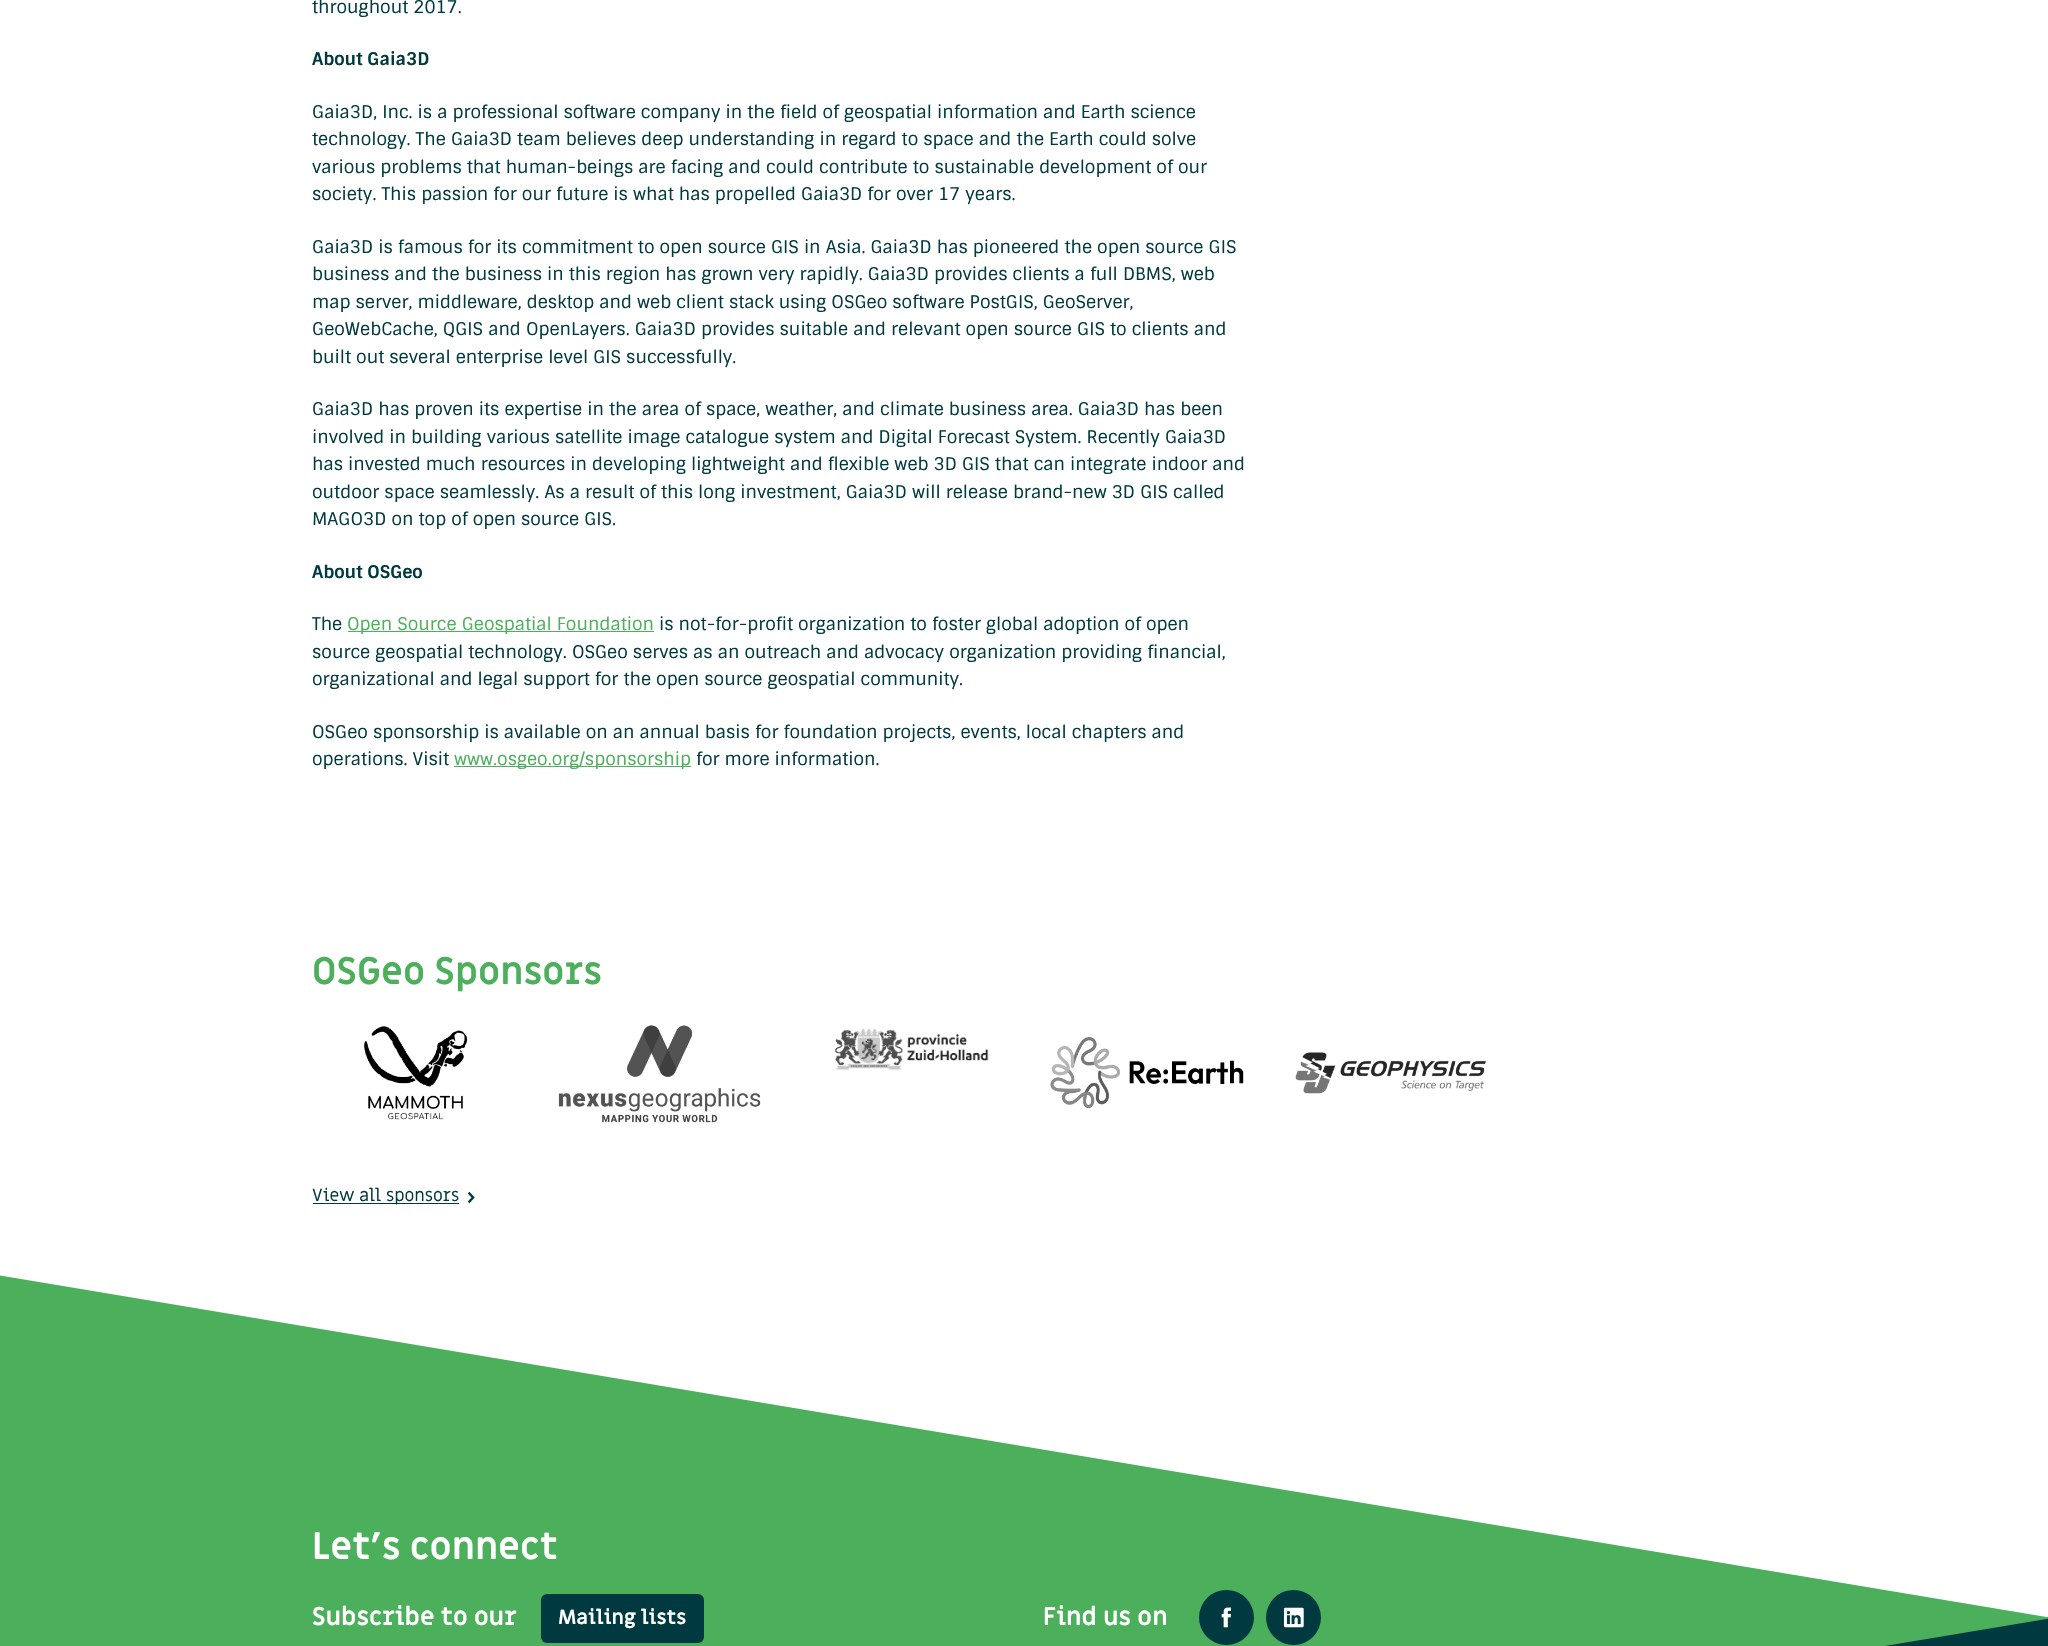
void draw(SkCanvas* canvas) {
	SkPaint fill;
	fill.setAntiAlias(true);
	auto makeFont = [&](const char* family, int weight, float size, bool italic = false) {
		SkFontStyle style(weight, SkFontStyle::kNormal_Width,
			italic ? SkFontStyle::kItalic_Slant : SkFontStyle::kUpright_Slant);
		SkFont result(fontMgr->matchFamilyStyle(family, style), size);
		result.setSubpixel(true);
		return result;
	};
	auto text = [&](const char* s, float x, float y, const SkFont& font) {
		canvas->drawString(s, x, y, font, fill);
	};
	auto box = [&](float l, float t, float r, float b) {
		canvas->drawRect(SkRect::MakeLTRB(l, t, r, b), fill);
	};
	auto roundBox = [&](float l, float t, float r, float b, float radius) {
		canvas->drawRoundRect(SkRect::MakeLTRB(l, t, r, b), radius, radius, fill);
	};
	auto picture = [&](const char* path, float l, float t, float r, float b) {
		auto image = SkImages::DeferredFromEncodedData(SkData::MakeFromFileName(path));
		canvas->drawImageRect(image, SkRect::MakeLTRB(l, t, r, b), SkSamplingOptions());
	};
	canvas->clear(0xFFFFFFFF);
	fill.setColor(0xFF4CAF5B);
	box(348, 631, 654, 632);
	box(454, 766, 691, 767);
	picture("image0.png", 364, 1026, 468, 1120);
	picture("image1.png", 558, 1025, 761, 1123);
	picture("image2.png", 834, 1028, 989, 1070);
	picture("image3.png", 1050, 1037, 1244, 1109);
	picture("image4.png", 1295, 1052, 1487, 1094);
	fill.setColor(0xFF003A40);
	box(313, 1203, 459, 1204);
	picture("image5.png", 467, 1191, 475, 1204);
	canvas->drawPath(SkPathBuilder(SkPathFillType::kEvenOdd).moveTo(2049, 1617).lineTo(-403, 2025).lineTo(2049, 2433).close().detach(), fill);
	fill.setColor(0xFF4CAF5B);
	canvas->drawPath(SkPathBuilder(SkPathFillType::kEvenOdd).moveTo(-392, 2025).lineTo(-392, 1210).lineTo(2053, 1618).close().detach(), fill);
	fill.setColor(0xFF003A40);
	roundBox(541, 1594, 704, 1643, 6);
	canvas->drawCircle(1226.5f, 1617.5f, 27.5f, fill);
	picture("image6.png", 1221, 1607, 1231, 1628);
	canvas->drawCircle(1293.5f, 1617.5f, 27.5f, fill);
	picture("image7.png", 1283, 1607, 1304, 1628);
	auto font1 = makeFont("Sintony", 400, 17.5f);
	text("throughout 2017.", 312, 13, font1);
	auto font2 = makeFont("Sintony", 700, 17.5f);
	text("About Gaia3D", 312, 65, font2);
	text("Gaia3D, Inc. is a professional software company in the field of geospatial information and Earth science", 312, 118, font1);
	text("technology. The Gaia3D team believes deep understanding in regard to space and the Earth could solve", 312, 145, font1);
	text("various problems that human-beings are facing and could contribute to sustainable development of our", 312, 173, font1);
	text("society. This passion for our future is what has propelled Gaia3D for over 17 years.", 312, 200, font1);
	text("Gaia3D is famous for its commitment to open source GIS in Asia. Gaia3D has pioneered the open source GIS", 312, 253, font1);
	text("business and the business in this region has grown very rapidly. Gaia3D provides clients a full DBMS, web", 312, 280, font1);
	text("map server, middleware, desktop and web client stack using OSGeo software PostGIS, GeoServer,", 312, 308, font1);
	text("GeoWebCache, QGIS and OpenLayers. Gaia3D provides suitable and relevant open source GIS to clients and", 312, 335, font1);
	text("built out several enterprise level GIS successfully.", 312, 363, font1);
	text("Gaia3D has proven its expertise in the area of space, weather, and climate business area. Gaia3D has been", 312, 415, font1);
	text("involved in building various satellite image catalogue system and Digital Forecast System. Recently Gaia3D", 312, 443, font1);
	text("has invested much resources in developing lightweight and flexible web 3D GIS that can integrate indoor and", 312, 470, font1);
	text("outdoor space seamlessly. As a result of this long investment, Gaia3D will release brand-new 3D GIS called", 312, 498, font1);
	text("MAGO3D on top of open source GIS.", 312, 525, font1);
	text("About OSGeo", 312, 578, font2);
	text("The", 312, 630, font1);
	fill.setColor(0xFF4CAF5B);
	text("Open Source Geospatial Foundation", 347, 630, font1);
	fill.setColor(0xFF003A40);
	text("is not-for-profit organization to foster global adoption of open", 659, 630, font1);
	text("source geospatial technology. OSGeo serves as an outreach and advocacy organization providing financial,", 312, 658, font1);
	text("organizational and legal support for the open source geospatial community.", 312, 685, font1);
	text("OSGeo sponsorship is available on an annual basis for foundation projects, events, local chapters and", 312, 738, font1);
	text("operations. Visit", 312, 765, font1);
	fill.setColor(0xFF4CAF5B);
	text("www.osgeo.org/sponsorship", 454, 765, font1);
	fill.setColor(0xFF003A40);
	text("for more information.", 696, 765, font1);
	auto font3 = makeFont("Miriam Libre", 700, 37.5f);
	fill.setColor(0xFF4CAF5B);
	text("OSGeo Sponsors", 312, 984, font3);
	auto font4 = makeFont("Miriam Libre", 400, 17.5f);
	fill.setColor(0xFF003A40);
	text("View all sponsors", 312, 1201, font4);
	fill.setColor(0xFFFFFFFF);
	text("Let's connect", 312, 1559, font3);
	auto font5 = makeFont("Miriam Libre", 700, 25);
	text("Subscribe to our", 312, 1625, font5);
	auto font6 = makeFont("Miriam Libre", 700, 20);
	text("Mailing lists", 558, 1624, font6);
	text("Find us on", 1043, 1625, font5);
}
